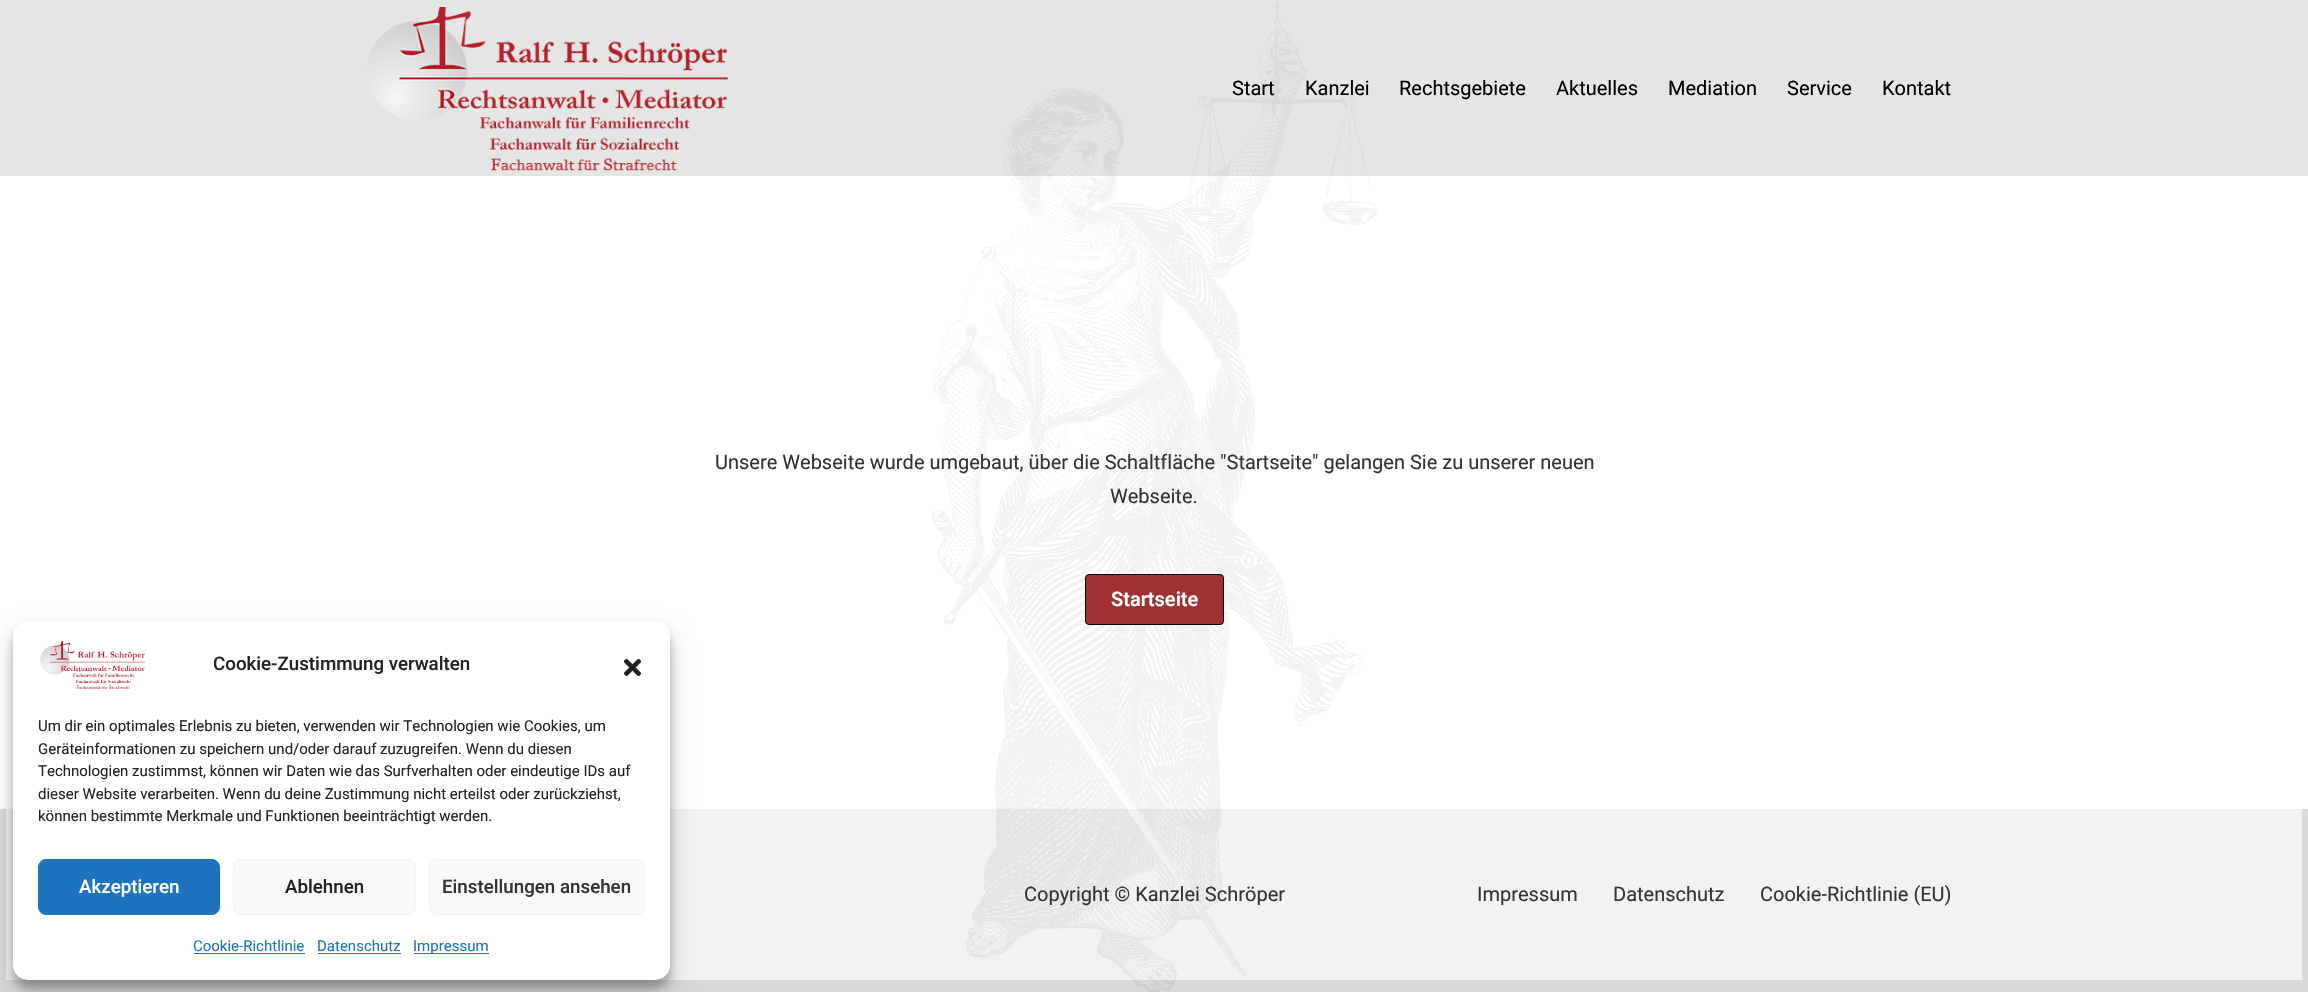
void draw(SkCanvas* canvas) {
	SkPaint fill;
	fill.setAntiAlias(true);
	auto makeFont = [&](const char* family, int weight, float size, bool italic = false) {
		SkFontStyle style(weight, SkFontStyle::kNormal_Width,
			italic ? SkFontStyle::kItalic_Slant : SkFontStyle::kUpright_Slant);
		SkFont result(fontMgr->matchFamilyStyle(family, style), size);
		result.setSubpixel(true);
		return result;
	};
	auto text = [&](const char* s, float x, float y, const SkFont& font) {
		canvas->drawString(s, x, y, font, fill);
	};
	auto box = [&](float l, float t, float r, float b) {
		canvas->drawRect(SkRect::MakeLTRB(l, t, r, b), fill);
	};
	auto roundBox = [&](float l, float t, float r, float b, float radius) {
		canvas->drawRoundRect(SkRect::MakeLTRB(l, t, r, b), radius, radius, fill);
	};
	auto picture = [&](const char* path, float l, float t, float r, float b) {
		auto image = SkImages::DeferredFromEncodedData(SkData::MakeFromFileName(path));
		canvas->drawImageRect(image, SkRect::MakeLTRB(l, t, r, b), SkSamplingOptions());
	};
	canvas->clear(0xFFFFFFFF);
	picture("image0.png", 931, 0, 1378, 992);
	fill.setColor(0x0D000000);
	box(0, 809, 2308, 992);
	fill.setColor(0xFFDADADA);
	canvas->drawPath(SkPathBuilder().moveTo(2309, 809).lineTo(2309, 992).lineTo(2302, 980).lineTo(2302, 809).close().detach(), fill);
	fill.setColor(0x1A000000);
	canvas->drawPath(SkPathBuilder().moveTo(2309, 992).lineTo(0, 992).lineTo(6, 980).lineTo(2302, 980).close().detach(), fill);
	canvas->drawPath(SkPathBuilder().moveTo(0, 992).lineTo(0, 809).lineTo(6, 809).lineTo(6, 980).close().detach(), fill);
	fill.setColor(0x3B000000);
	fill.setMaskFilter(SkMaskFilter::MakeBlur(kNormal_SkBlurStyle, 4));
	canvas->drawRoundRect(SkRect::MakeLTRB(13, 629, 670, 988), 15, 15, fill);
	fill.setMaskFilter(nullptr);
	fill.setColor(0x30000000);
	fill.setMaskFilter(SkMaskFilter::MakeBlur(kNormal_SkBlurStyle, 12.5f));
	canvas->drawRoundRect(SkRect::MakeLTRB(13, 634, 670, 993), 15, 15, fill);
	fill.setMaskFilter(nullptr);
	fill.setColor(0xFFFFFFFF);
	roundBox(13, 621, 670, 980, 15);
	picture("image1.png", 40, 641, 145, 689);
	picture("image2.png", 623, 658, 642, 677);
	fill.setColor(0xFF1E73BE);
	canvas->drawRoundRect(SkRect::MakeLTRB(38.5f, 859.5f, 219.5f, 914.5f), 7.5f, 7.5f, fill);
	fill.setStyle(SkPaint::kStroke_Style);
	fill.setStrokeWidth(1);
	canvas->drawRoundRect(SkRect::MakeLTRB(38.5f, 859.5f, 219.5f, 914.5f), 7.5f, 7.5f, fill);
	fill.setStyle(SkPaint::kFill_Style);
	fill.setColor(0xFFF9F9F9);
	canvas->drawRoundRect(SkRect::MakeLTRB(233.5f, 859.5f, 415.5f, 914.5f), 7.5f, 7.5f, fill);
	fill.setStyle(SkPaint::kStroke_Style);
	fill.setColor(0xFFF2F2F2);
	canvas->drawRoundRect(SkRect::MakeLTRB(233.5f, 859.5f, 415.5f, 914.5f), 7.5f, 7.5f, fill);
	fill.setStyle(SkPaint::kFill_Style);
	fill.setColor(0xFFF9F9F9);
	canvas->drawRoundRect(SkRect::MakeLTRB(429.5f, 859.5f, 644.5f, 914.5f), 7.5f, 7.5f, fill);
	fill.setStyle(SkPaint::kStroke_Style);
	fill.setColor(0xFFF2F2F2);
	canvas->drawRoundRect(SkRect::MakeLTRB(429.5f, 859.5f, 644.5f, 914.5f), 7.5f, 7.5f, fill);
	fill.setStyle(SkPaint::kFill_Style);
	fill.setColor(0xFF1E73BE);
	box(194, 953, 305, 954);
	box(318, 953, 401, 954);
	box(414, 953, 489, 954);
	fill.setColor(0x1A000000);
	box(0, 0, 2308, 176);
	picture("image3.png", 367, 7, 728, 171);
	fill.setColor(0xFFA03131);
	canvas->drawRoundRect(SkRect::MakeLTRB(1085.5f, 574.5f, 1223.5f, 624.5f), 3.5f, 3.5f, fill);
	fill.setStyle(SkPaint::kStroke_Style);
	fill.setColor(0xFF000000);
	canvas->drawRoundRect(SkRect::MakeLTRB(1085.5f, 574.5f, 1223.5f, 624.5f), 3.5f, 3.5f, fill);
	auto font1 = makeFont("Roboto", 500, 18.75f);
	fill.setStyle(SkPaint::kFill_Style);
	fill.setColor(0xFF222222);
	text("Cookie-Zustimmung verwalten", 213, 670, font1);
	auto font2 = makeFont("Roboto", 400, 15);
	text("Um dir ein optimales Erlebnis zu bieten, verwenden wir Technologien wie Cookies, um", 38, 731, font2);
	text("Geräteinformationen zu speichern und/oder darauf zuzugreifen. Wenn du diesen", 38, 754, font2);
	text("Technologien zustimmst, können wir Daten wie das Surfverhalten oder eindeutige IDs auf", 38, 776, font2);
	text("dieser Website verarbeiten. Wenn du deine Zustimmung nicht erteilst oder zurückziehst,", 38, 799, font2);
	text("können bestimmte Merkmale und Funktionen beeinträchtigt werden.", 38, 821, font2);
	fill.setColor(0xFFFFFFFF);
	text("Akzeptieren", 79, 893, font1);
	fill.setColor(0xFF222222);
	text("Ablehnen", 285, 893, font1);
	fill.setColor(0xFF333333);
	text("Einstellungen ansehen", 442, 893, font1);
	fill.setColor(0xFF1E73BE);
	text("Cookie-Richtlinie", 193, 951, font2);
	text("Datenschutz", 317, 951, font2);
	text("Impressum", 413, 951, font2);
	auto font3 = makeFont("Roboto", 400, 20);
	fill.setColor(0xFF000000);
	text("Start", 1232, 95, font3);
	text("Kanzlei", 1305, 95, font3);
	text("Rechtsgebiete", 1399, 95, font3);
	text("Aktuelles", 1556, 95, font3);
	text("Mediation", 1668, 95, font3);
	text("Service", 1787, 95, font3);
	text("Kontakt", 1882, 95, font3);
	fill.setColor(0xFF333333);
	text("Unsere Webseite wurde umgebaut, über die Schaltfläche \"Startseite\" gelangen Sie zu unserer neuen", 715, 469, font3);
	text("Webseite.", 1110, 503, font3);
	auto font4 = makeFont("Roboto", 600, 20);
	fill.setColor(0xFFFFFFFF);
	text("Startseite", 1111, 606, font4);
	fill.setColor(0xFF333333);
	text("Copyright © Kanzlei Schröper", 1024, 901, font3);
	text("Impressum", 1477, 901, font3);
	text("Datenschutz", 1613, 901, font3);
	text("Cookie-Richtlinie (EU)", 1760, 901, font3);
}
